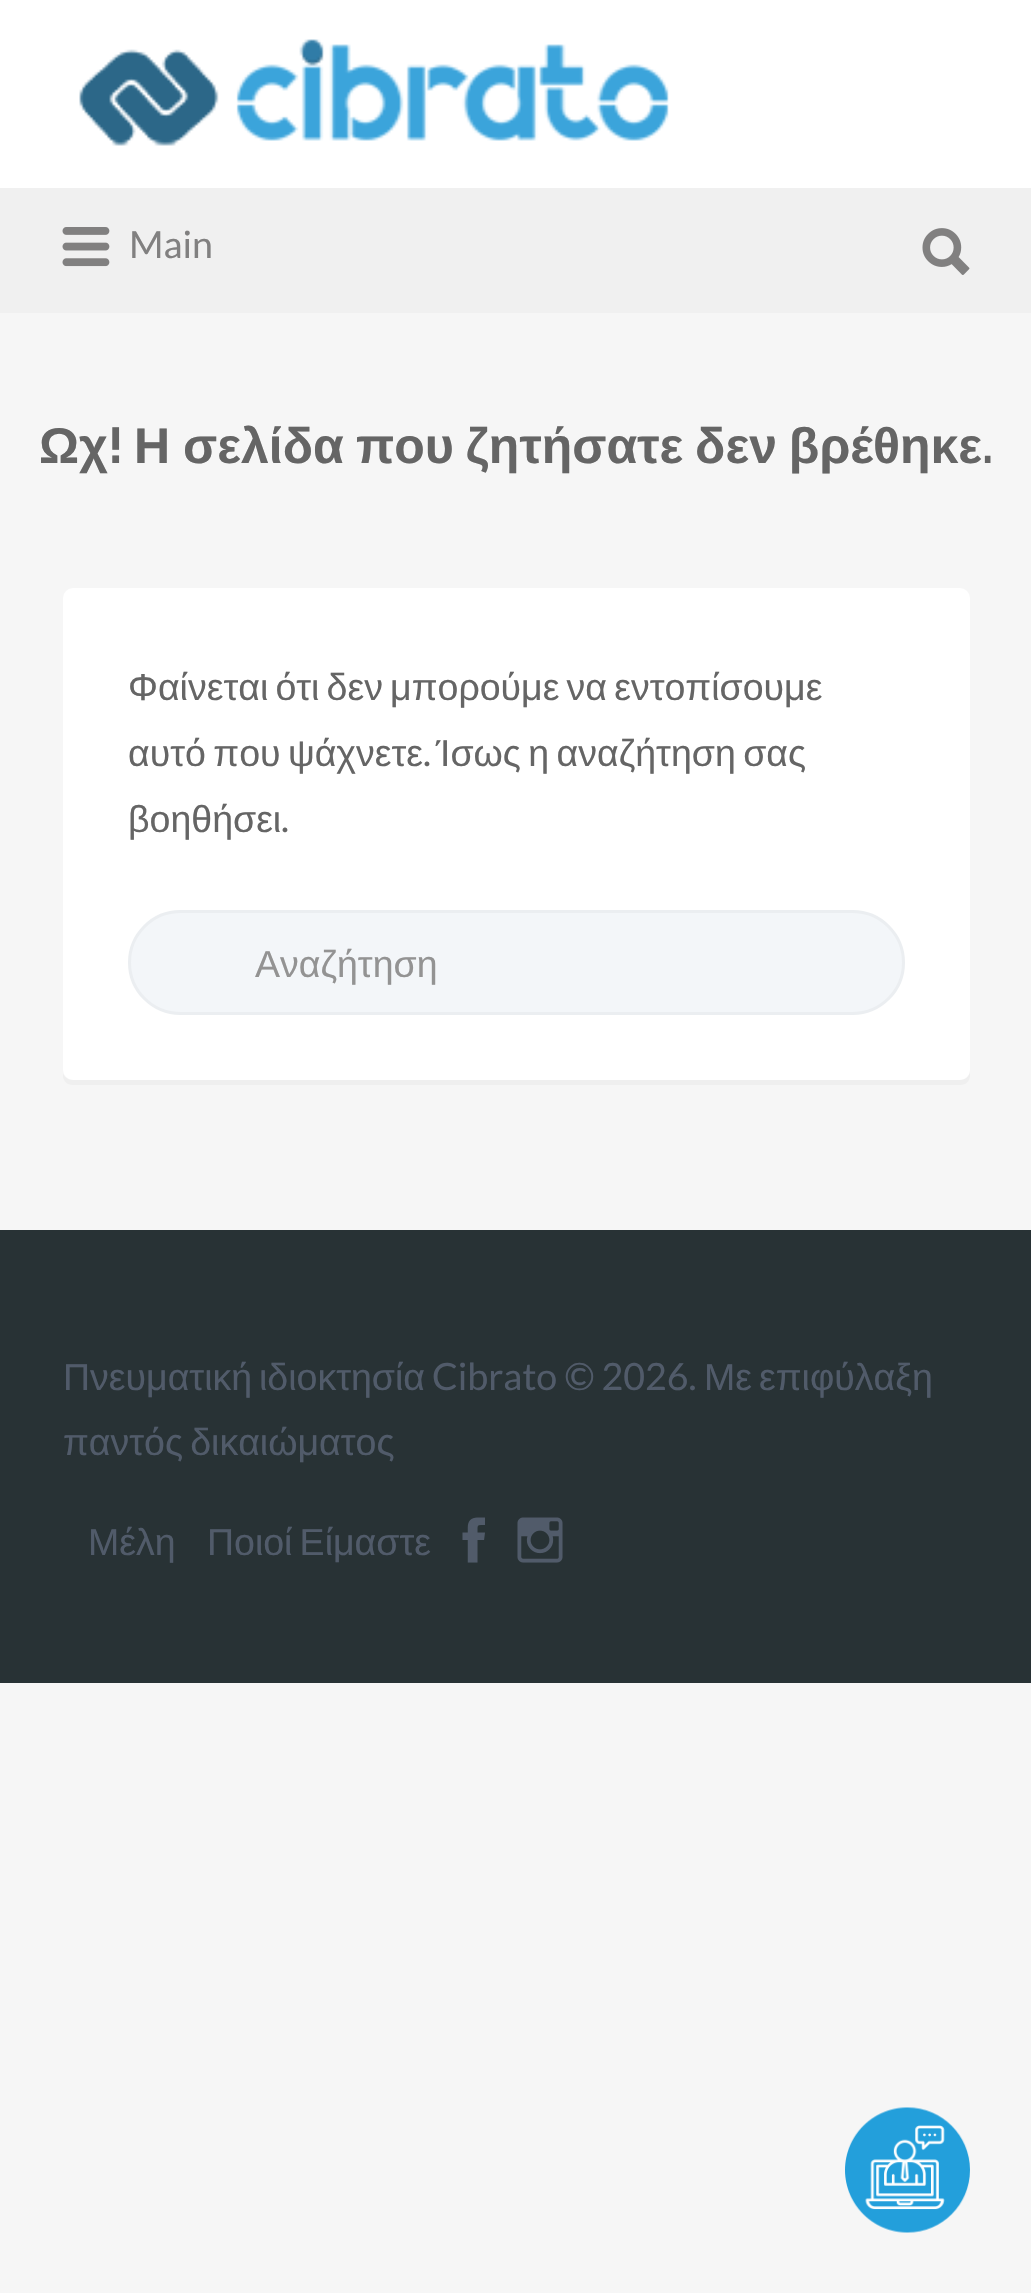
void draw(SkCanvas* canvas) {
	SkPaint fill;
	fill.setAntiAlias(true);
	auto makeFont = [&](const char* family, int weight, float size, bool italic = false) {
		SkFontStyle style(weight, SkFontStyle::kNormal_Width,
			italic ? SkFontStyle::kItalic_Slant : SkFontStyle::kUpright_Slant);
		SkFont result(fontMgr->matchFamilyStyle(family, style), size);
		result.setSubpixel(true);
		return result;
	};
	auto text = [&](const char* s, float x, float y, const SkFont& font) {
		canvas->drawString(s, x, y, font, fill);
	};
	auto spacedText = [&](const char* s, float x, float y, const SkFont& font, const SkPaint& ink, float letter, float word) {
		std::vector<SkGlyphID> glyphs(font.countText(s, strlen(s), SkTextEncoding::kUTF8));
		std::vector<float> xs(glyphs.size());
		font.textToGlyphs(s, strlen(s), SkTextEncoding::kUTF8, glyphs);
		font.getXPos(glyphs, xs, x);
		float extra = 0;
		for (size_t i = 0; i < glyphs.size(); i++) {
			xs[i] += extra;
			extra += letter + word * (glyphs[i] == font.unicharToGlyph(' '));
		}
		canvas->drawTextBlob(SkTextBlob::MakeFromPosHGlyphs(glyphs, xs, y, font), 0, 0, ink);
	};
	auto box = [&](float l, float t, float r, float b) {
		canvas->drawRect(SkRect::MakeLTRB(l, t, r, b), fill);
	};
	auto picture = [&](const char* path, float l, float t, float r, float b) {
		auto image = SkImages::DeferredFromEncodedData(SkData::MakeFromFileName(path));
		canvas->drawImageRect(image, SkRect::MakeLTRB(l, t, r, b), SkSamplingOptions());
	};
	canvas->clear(0xFFF6F6F6);
	fill.setColor(0xFFFFFFFF);
	box(0, 0, 1031, 188);
	picture("image0.png", 79, 39, 669, 146);
	fill.setColor(0xFFF0F0F0);
	box(0, 188, 1031, 313);
	picture("image1.png", 62, 227, 110, 267);
	picture("image2.png", 922, 228, 970, 275);
	fill.setColor(0xFFEFEFEF);
	canvas->drawPath(SkPathBuilder().moveTo(63, 1073).lineTo(63, 1075).cubicTo(63, 1081, 67, 1085, 73, 1085).lineTo(960, 1085).cubicTo(966, 1085, 970, 1081, 970, 1075).lineTo(970, 1070).cubicTo(970, 1076, 966, 1080, 960, 1080).lineTo(72, 1080).cubicTo(68, 1080, 64, 1077, 63, 1073).close().detach(), fill);
	fill.setColor(0xFFFFFFFF);
	canvas->drawRoundRect(SkRect::MakeLTRB(64.5f, 589.5f, 968.5f, 1078.5f), 8.5f, 8.5f, fill);
	fill.setStyle(SkPaint::kStroke_Style);
	fill.setStrokeWidth(3);
	canvas->drawRoundRect(SkRect::MakeLTRB(64.5f, 589.5f, 968.5f, 1078.5f), 8.5f, 8.5f, fill);
	fill.setStyle(SkPaint::kFill_Style);
	fill.setColor(0xFFF3F6F9);
	canvas->drawRoundRect(SkRect::MakeLTRB(129.5f, 911.5f, 903.5f, 1013.5f), 51, 51, fill);
	fill.setStyle(SkPaint::kStroke_Style);
	fill.setColor(0xFFEBEEF1);
	canvas->drawRoundRect(SkRect::MakeLTRB(129.5f, 911.5f, 903.5f, 1013.5f), 51, 51, fill);
	fill.setStyle(SkPaint::kFill_Style);
	fill.setColor(0xFF283235);
	box(0, 1230, 1031, 1683);
	picture("image3.png", 462, 1517, 485, 1563);
	picture("image4.png", 517, 1517, 563, 1563);
	picture("image5.png", 845, 2107, 970, 2233);
	auto font1 = makeFont("Lato", 400, 37.5f);
	fill.setColor(0xFF818080);
	text("Main", 129, 258, font1);
	auto font2 = makeFont("Liberation Sans", 700, 50);
	fill.setColor(0xFF656565);
	text("Ωχ", 39, 463, font2);
	auto font3 = makeFont("Raleway", 700, 50);
	text("!", 108, 463, font3);
	spacedText("Η σελίδα", 134, 463, font2, fill, 0, -1);
	spacedText("που ζητήσατε δεν βρέθηκε", 356, 463, font2, fill, 0, -2);
	text(".", 982, 463, font3);
	auto font4 = makeFont("Liberation Sans", 400, 37.5f);
	spacedText("Φαίνεται ότι δεν μπορούμε να εντοπίσουμε", 128, 700, font4, fill, 0, -3.25f);
	spacedText("αυτό που ψάχνετε", 128, 766, font4, fill, 0, -3);
	text(".", 423, 766, font1);
	spacedText("Ίσως η αναζήτηση σας", 436, 766, font4, fill, 0, -3);
	text("βοηθήσει", 128, 832, font4);
	text(".", 281, 832, font1);
	fill.setColor(0xFF939393);
	text("Αναζήτηση", 255, 977, font4);
	fill.setColor(0xFF515B6A);
	text("Πνευματική", 63, 1390, font4);
	text("ιδιοκτησία", 259, 1390, font4);
	text("Cibrato © 2026.", 432, 1390, font1);
	text("Με", 704, 1390, font4);
	text("επιφύλαξη", 759, 1390, font4);
	spacedText("παντός δικαιώματος", 63, 1455, font4, fill, 0, -3.25f);
	text("Μέλη", 88, 1555, font4);
	spacedText("Ποιοί Είμαστε", 207, 1555, font4, fill, 0, -3.25f);
}
